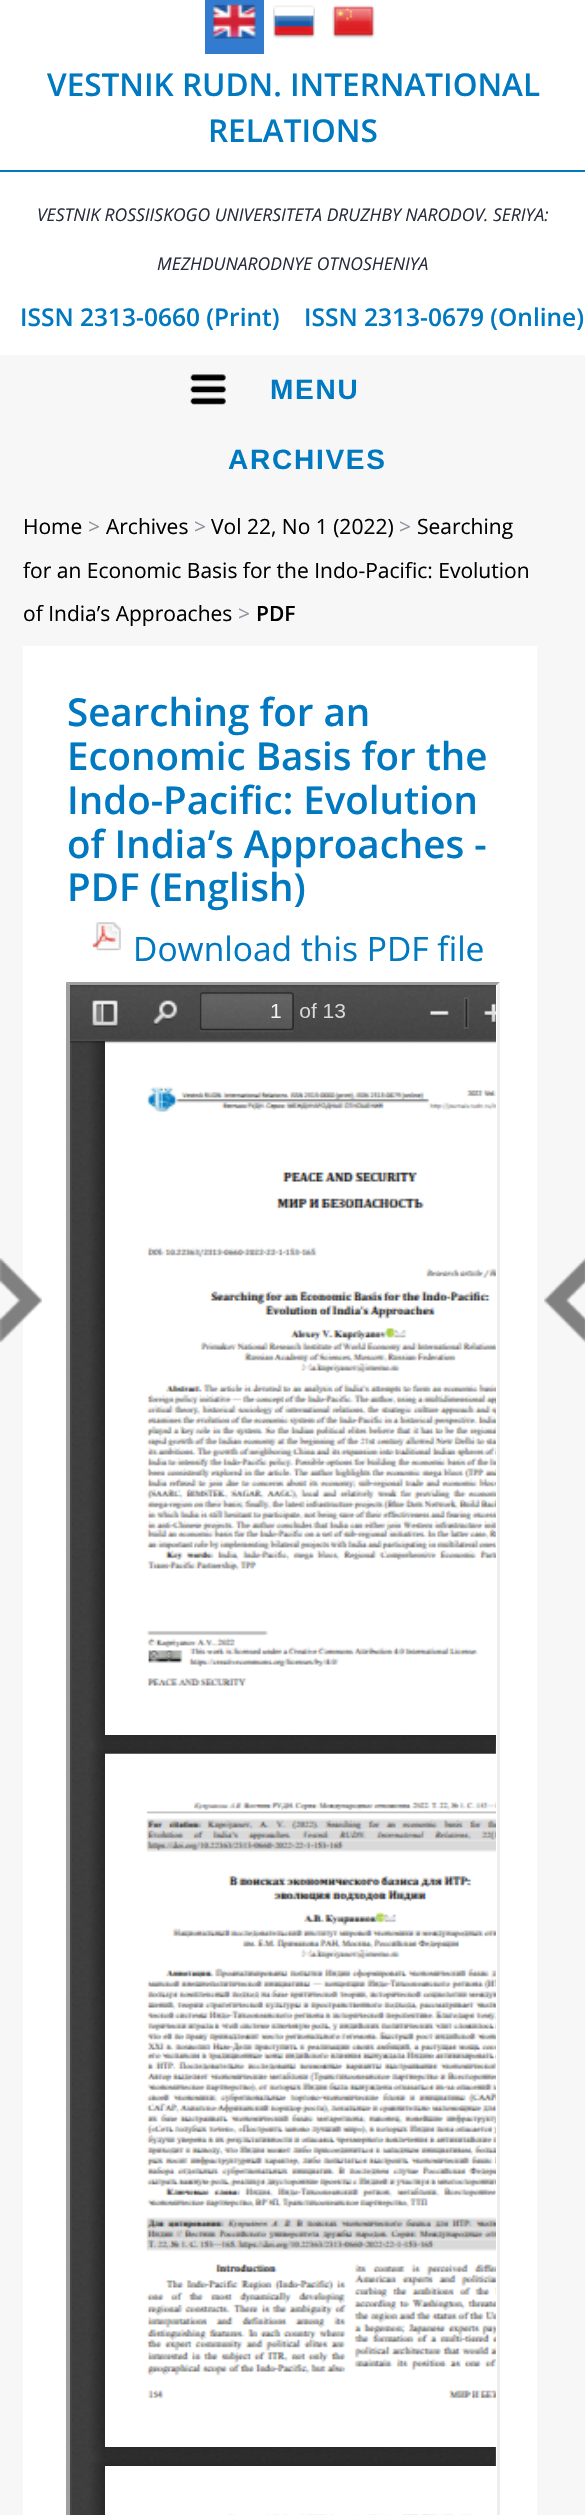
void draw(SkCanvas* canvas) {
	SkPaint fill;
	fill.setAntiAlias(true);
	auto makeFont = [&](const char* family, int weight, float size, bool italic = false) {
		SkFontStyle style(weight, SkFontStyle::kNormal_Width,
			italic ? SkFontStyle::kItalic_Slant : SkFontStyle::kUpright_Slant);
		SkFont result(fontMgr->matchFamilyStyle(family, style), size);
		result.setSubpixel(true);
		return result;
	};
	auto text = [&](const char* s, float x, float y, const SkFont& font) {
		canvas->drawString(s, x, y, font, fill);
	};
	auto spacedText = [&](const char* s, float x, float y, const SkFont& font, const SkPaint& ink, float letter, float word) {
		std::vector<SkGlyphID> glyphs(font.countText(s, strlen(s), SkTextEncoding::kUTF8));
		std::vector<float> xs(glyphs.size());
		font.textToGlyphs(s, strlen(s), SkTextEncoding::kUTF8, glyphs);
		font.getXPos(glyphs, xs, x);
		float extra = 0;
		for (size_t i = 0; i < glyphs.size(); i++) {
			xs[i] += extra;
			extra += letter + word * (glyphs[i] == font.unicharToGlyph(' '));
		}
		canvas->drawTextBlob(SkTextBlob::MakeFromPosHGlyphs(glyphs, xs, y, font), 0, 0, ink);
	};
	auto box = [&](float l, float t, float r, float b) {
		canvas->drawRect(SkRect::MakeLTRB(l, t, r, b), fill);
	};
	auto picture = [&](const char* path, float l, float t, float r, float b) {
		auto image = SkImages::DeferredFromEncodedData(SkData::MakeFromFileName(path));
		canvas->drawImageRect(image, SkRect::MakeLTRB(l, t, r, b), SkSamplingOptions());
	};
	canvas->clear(0xFFF7F7F7);
	fill.setColor(0xFFFFFFFF);
	box(0, 0, 585, 355);
	fill.setColor(0xFF327BCF);
	box(205, 0, 264, 54);
	picture("image0.png", 213, 3, 256, 39);
	picture("image1.png", 273, 5, 315, 39);
	picture("image2.png", 332, 5, 375, 39);
	fill.setColor(0xFF0079C1);
	box(0, 170, 585, 172);
	picture("image3.png", 190, 374, 226, 405);
	fill.setColor(0xFFFFFFFF);
	box(23, 646, 537, 2515);
	picture("image4.png", 92, 922, 121, 951);
	fill.setColor(0xFF9F9F9F);
	canvas->drawPath(SkPathBuilder().moveTo(66, 982).lineTo(500, 982).lineTo(497, 985).lineTo(70, 985).close().detach(), fill);
	canvas->drawPath(SkPathBuilder().moveTo(66, 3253).lineTo(66, 982).lineTo(70, 985).lineTo(70, 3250).close().detach(), fill);
	picture("image5.png", 70, 985, 496, 2515);
	fill.setColor(0xFFEEEEEE);
	canvas->drawPath(SkPathBuilder().moveTo(500, 982).lineTo(500, 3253).lineTo(497, 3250).lineTo(497, 985).close().detach(), fill);
	picture("image6.png", 0, 1258, 42, 1343);
	picture("image7.png", 544, 1258, 585, 1343);
	auto font1 = makeFont("Open Sans", 600, 31.5f);
	fill.setColor(0xFF0079C1);
	text("VESTNIK RUDN. INTERNATIONAL", 47, 96, font1);
	text("RELATIONS", 208, 142, font1);
	auto font2 = makeFont("Open Sans", 400, 17.5f, true);
	fill.setColor(0xFF292C3D);
	text("VESTNIK ROSSIISKOGO UNIVERSITETA DRUZHBY NARODOV. SERIYA:", 37, 221, font2);
	text("MEZHDUNARODNYE OTNOSHENIYA", 157, 270, font2);
	auto font3 = makeFont("Open Sans", 600, 24.5f);
	fill.setColor(0xFF0079C1);
	text("ISSN 2313-0660 (Print)", 20, 326, font3);
	text("ISSN 2313-0679 (Online)", 304, 326, font3);
	auto font4 = makeFont("Liberation Sans", 700, 28);
	spacedText("MENU", 270, 399, font4, fill, 1.75f, 0);
	spacedText("ARCHIVES", 228, 469, font4, fill, 1.75f, 0);
	auto font5 = makeFont("Open Sans", 400, 21);
	fill.setColor(0xFF010101);
	text("Home", 23, 534, font5);
	fill.setColor(0xFF90939E);
	text(">", 88, 534, font5);
	fill.setColor(0xFF010101);
	text("Archives", 106, 534, font5);
	fill.setColor(0xFF90939E);
	text(">", 194, 534, font5);
	fill.setColor(0xFF010101);
	text("Vol 22, No 1 (2022)", 211, 534, font5);
	fill.setColor(0xFF90939E);
	text(">", 399, 534, font5);
	fill.setColor(0xFF010101);
	text("Searching", 417, 534, font5);
	text("for an Economic Basis for the Indo-Pacific: Evolution", 23, 578, font5);
	text("of India’s Approaches", 23, 621, font5);
	fill.setColor(0xFF90939E);
	text(">", 238, 621, font5);
	auto font6 = makeFont("Open Sans", 600, 21);
	fill.setColor(0xFF010101);
	text("PDF", 256, 621, font6);
	auto font7 = makeFont("Open Sans", 600, 38.5f);
	fill.setColor(0xFF0079C1);
	text("Searching for an", 67, 726, font7);
	text("Economic Basis for the", 67, 770, font7);
	text("Indo-Pacific: Evolution", 67, 814, font7);
	text("of India’s Approaches -", 67, 858, font7);
	text("PDF (English)", 67, 901, font7);
	auto font8 = makeFont("Open Sans", 400, 33.6f);
	text("Download this PDF file", 133, 961, font8);
}
